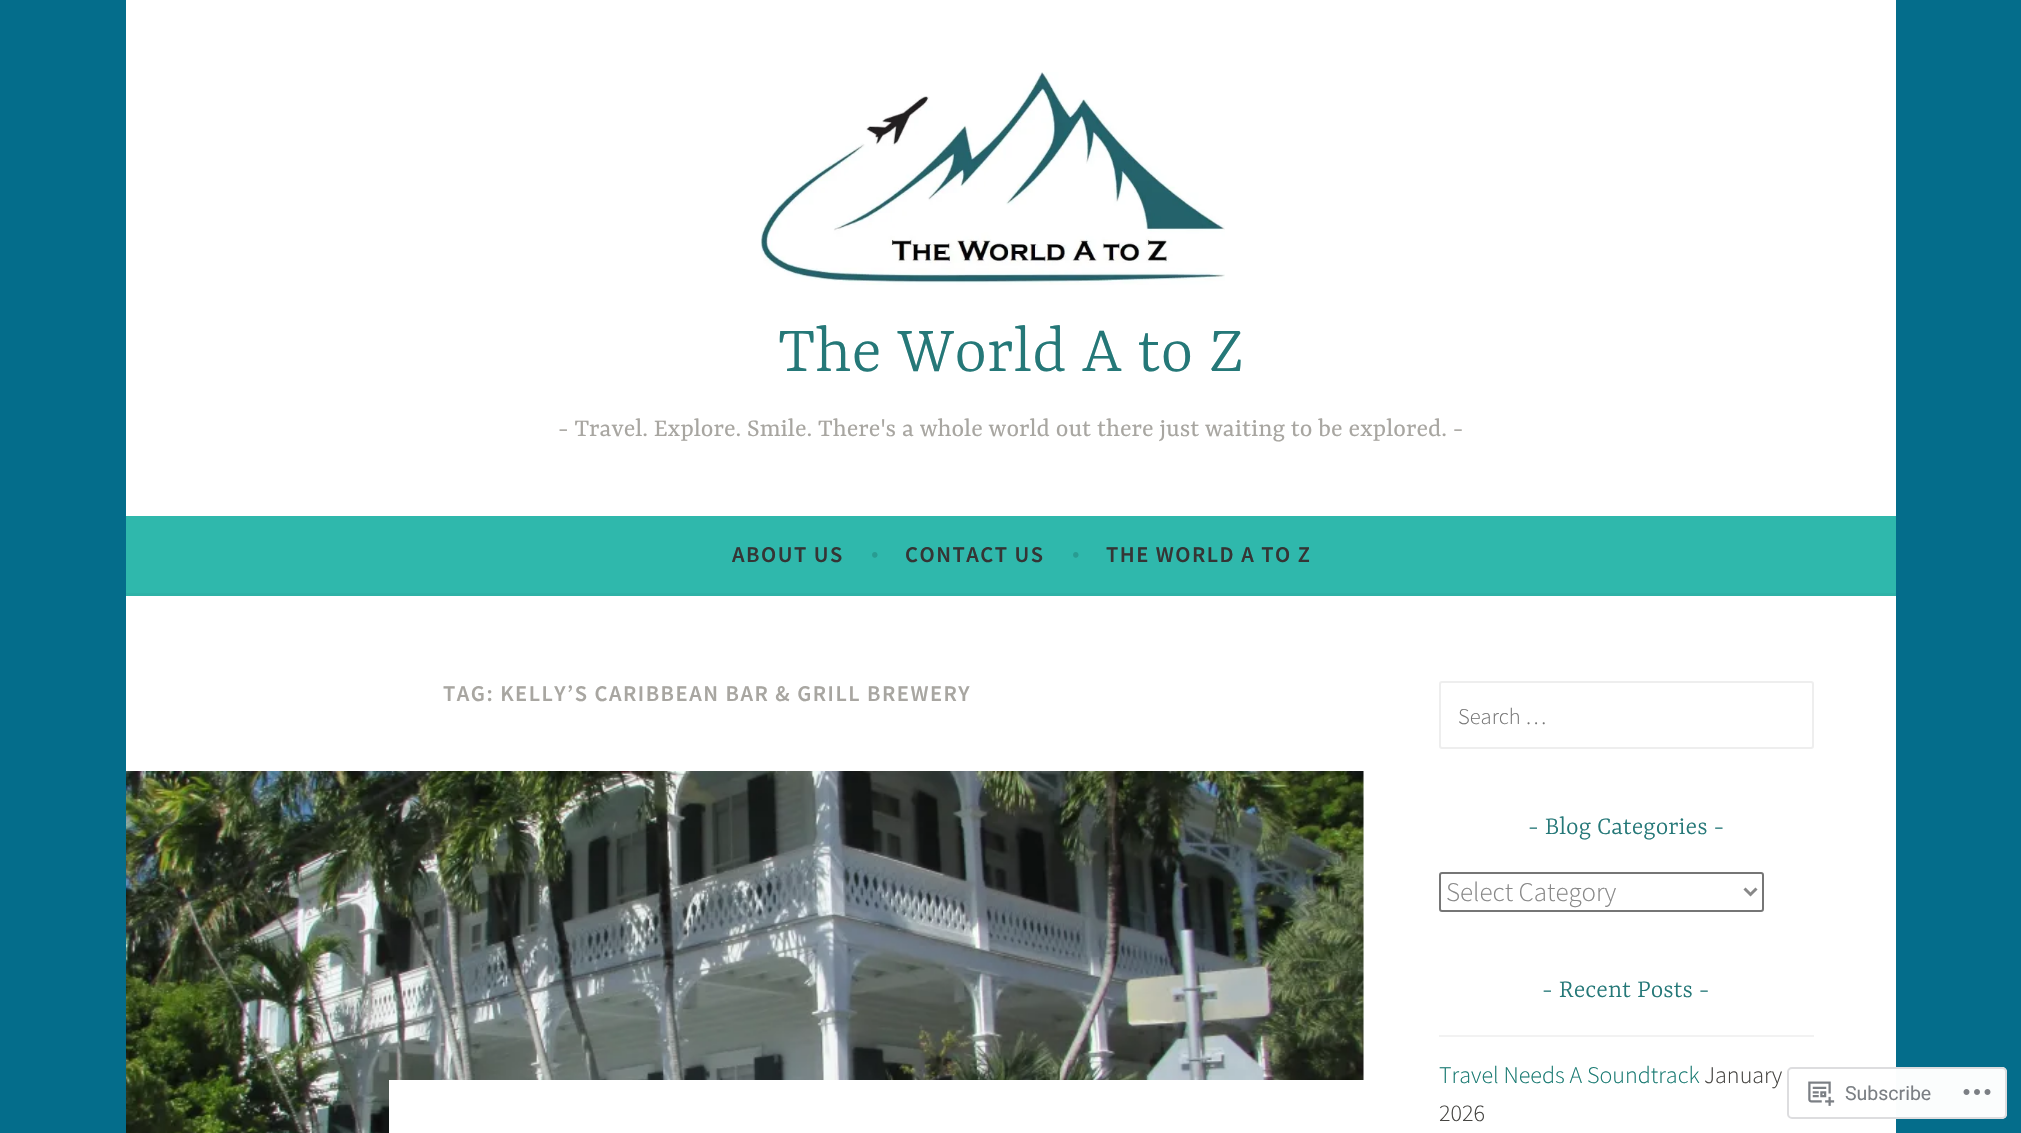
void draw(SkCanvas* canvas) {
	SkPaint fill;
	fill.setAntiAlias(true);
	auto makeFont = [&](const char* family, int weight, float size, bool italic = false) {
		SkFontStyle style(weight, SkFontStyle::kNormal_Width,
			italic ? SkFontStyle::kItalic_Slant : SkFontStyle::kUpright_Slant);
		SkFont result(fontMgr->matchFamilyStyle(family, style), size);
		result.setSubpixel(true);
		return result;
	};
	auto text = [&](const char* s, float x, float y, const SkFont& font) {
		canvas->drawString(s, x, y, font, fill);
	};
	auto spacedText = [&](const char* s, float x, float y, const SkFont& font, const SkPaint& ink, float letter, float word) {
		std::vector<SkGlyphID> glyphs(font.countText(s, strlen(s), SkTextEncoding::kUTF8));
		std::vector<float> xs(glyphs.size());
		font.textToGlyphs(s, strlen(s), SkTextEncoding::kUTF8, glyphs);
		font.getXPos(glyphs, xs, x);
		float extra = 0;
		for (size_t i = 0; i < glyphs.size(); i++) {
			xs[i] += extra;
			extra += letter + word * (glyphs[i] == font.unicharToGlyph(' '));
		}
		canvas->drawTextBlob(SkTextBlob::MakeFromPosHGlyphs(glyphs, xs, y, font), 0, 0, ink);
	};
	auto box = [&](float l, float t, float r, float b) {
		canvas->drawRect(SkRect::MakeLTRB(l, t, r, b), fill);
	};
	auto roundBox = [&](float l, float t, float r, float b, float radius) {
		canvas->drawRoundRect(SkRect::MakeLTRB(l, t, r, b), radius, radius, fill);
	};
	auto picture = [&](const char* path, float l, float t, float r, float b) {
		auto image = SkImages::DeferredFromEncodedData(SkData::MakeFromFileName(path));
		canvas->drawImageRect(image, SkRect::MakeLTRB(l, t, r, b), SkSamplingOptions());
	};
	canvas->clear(0xFF046D8B);
	fill.setColor(0xFFFFFFFF);
	box(126, 0, 1896, 516);
	picture("image0.png", 760, 72, 1225, 285);
	fill.setColor(0xFF2FB8AC);
	box(126, 516, 1896, 593);
	fill.setColor(0xFF2EB2A7);
	box(126, 593, 1896, 596);
	fill.setColor(0xFFFFFFFF);
	box(126, 596, 1896, 1133);
	fill.setColor(0xFFF8F9F8);
	box(1363, 771, 1364, 1080);
	picture("image1.png", 126, 771, 1364, 1133);
	fill.setColor(0xFFFFFFFF);
	box(389, 1080, 1364, 1133);
	fill.setStyle(SkPaint::kStroke_Style);
	fill.setStrokeWidth(2);
	fill.setColor(0xFFEEEEEE);
	canvas->drawRoundRect(SkRect::MakeLTRB(1440, 682, 1813, 748), 2, 2, fill);
	fill.setColor(0xFF767676);
	canvas->drawRoundRect(SkRect::MakeLTRB(1440, 873, 1763, 911), 2, 2, fill);
	fill.setStrokeWidth(3);
	fill.setColor(0xFF888888);
	canvas->drawPath(SkPathBuilder().moveTo(1744.5f, 888.5f).lineTo(1750.5f, 894.5f).lineTo(1756.5f, 888.5f).detach(), fill);
	fill.setStyle(SkPaint::kFill_Style);
	fill.setColor(0xFFF2F2F2);
	box(1439, 1035, 1814, 1037);
	fill.setColor(0xFAFFFFFF);
	roundBox(1787, 1067, 2007, 1119, 5);
	fill.setStyle(SkPaint::kStroke_Style);
	fill.setStrokeWidth(2);
	fill.setColor(0xFADCDCDE);
	canvas->drawRoundRect(SkRect::MakeLTRB(1788, 1068, 2006, 1118), 4, 4, fill);
	picture("image2.png", 1808, 1081, 1835, 1106);
	picture("image3.png", 1963, 1089, 1991, 1095);
	auto font1 = makeFont("Yrsa", 300, 70.5f);
	fill.setStyle(SkPaint::kFill_Style);
	fill.setColor(0xFF257878);
	text("The World A to Z", 778, 371, font1);
	auto font2 = makeFont("Yrsa", 400, 27);
	fill.setColor(0xFFA8A6A1);
	text("- Travel. Explore. Smile. There's a whole world out there just waiting to be explored. -", 558, 436, font2);
	auto font3 = makeFont("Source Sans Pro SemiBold", 600, 22.5f);
	fill.setColor(0xFF353535);
	spacedText("ABOUT US", 732, 562, font3, fill, 1.5f, 0);
	auto font4 = makeFont("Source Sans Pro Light", 300, 27);
	fill.setColor(0xFF289C92);
	text("•", 871, 562, font4);
	fill.setColor(0xFF353535);
	spacedText("CONTACT US", 905, 562, font3, fill, 1.5f, 0);
	fill.setColor(0xFF289C92);
	text("•", 1072, 562, font4);
	fill.setColor(0xFF353535);
	spacedText("THE WORLD A TO Z", 1106, 562, font3, fill, 1.5f, 0);
	fill.setColor(0xFFA8A6A1);
	spacedText("TAG: KELLY’S CARIBBEAN BAR & GRILL BREWERY", 443, 701, font3, fill, 1.5f, 0);
	auto font5 = makeFont("Source Sans Pro Light", 300, 22.5f);
	fill.setColor(0xFF757575);
	text("Search …", 1458, 724, font5);
	auto font6 = makeFont("Yrsa", 300, 27);
	fill.setColor(0xFF257878);
	text("- Blog Categories -", 1528, 834, font6);
	fill.setColor(0xFF888888);
	text("Select Category", 1446, 901, font4);
	fill.setColor(0xFF257878);
	text("- Recent Posts -", 1542, 997, font6);
	auto font7 = makeFont("Source Sans Pro Light", 300, 24);
	fill.setColor(0xFF197A72);
	text("Travel Needs A Soundtrack", 1439, 1083, font7);
	fill.setColor(0xFF444340);
	text("January", 1704, 1083, font7);
	text("2026", 1439, 1121, font7);
	auto font8 = makeFont("Roboto", 400, 19.5f);
	fill.setColor(0xFF7B7F84);
	text("Subscribe", 1845, 1100, font8);
}
